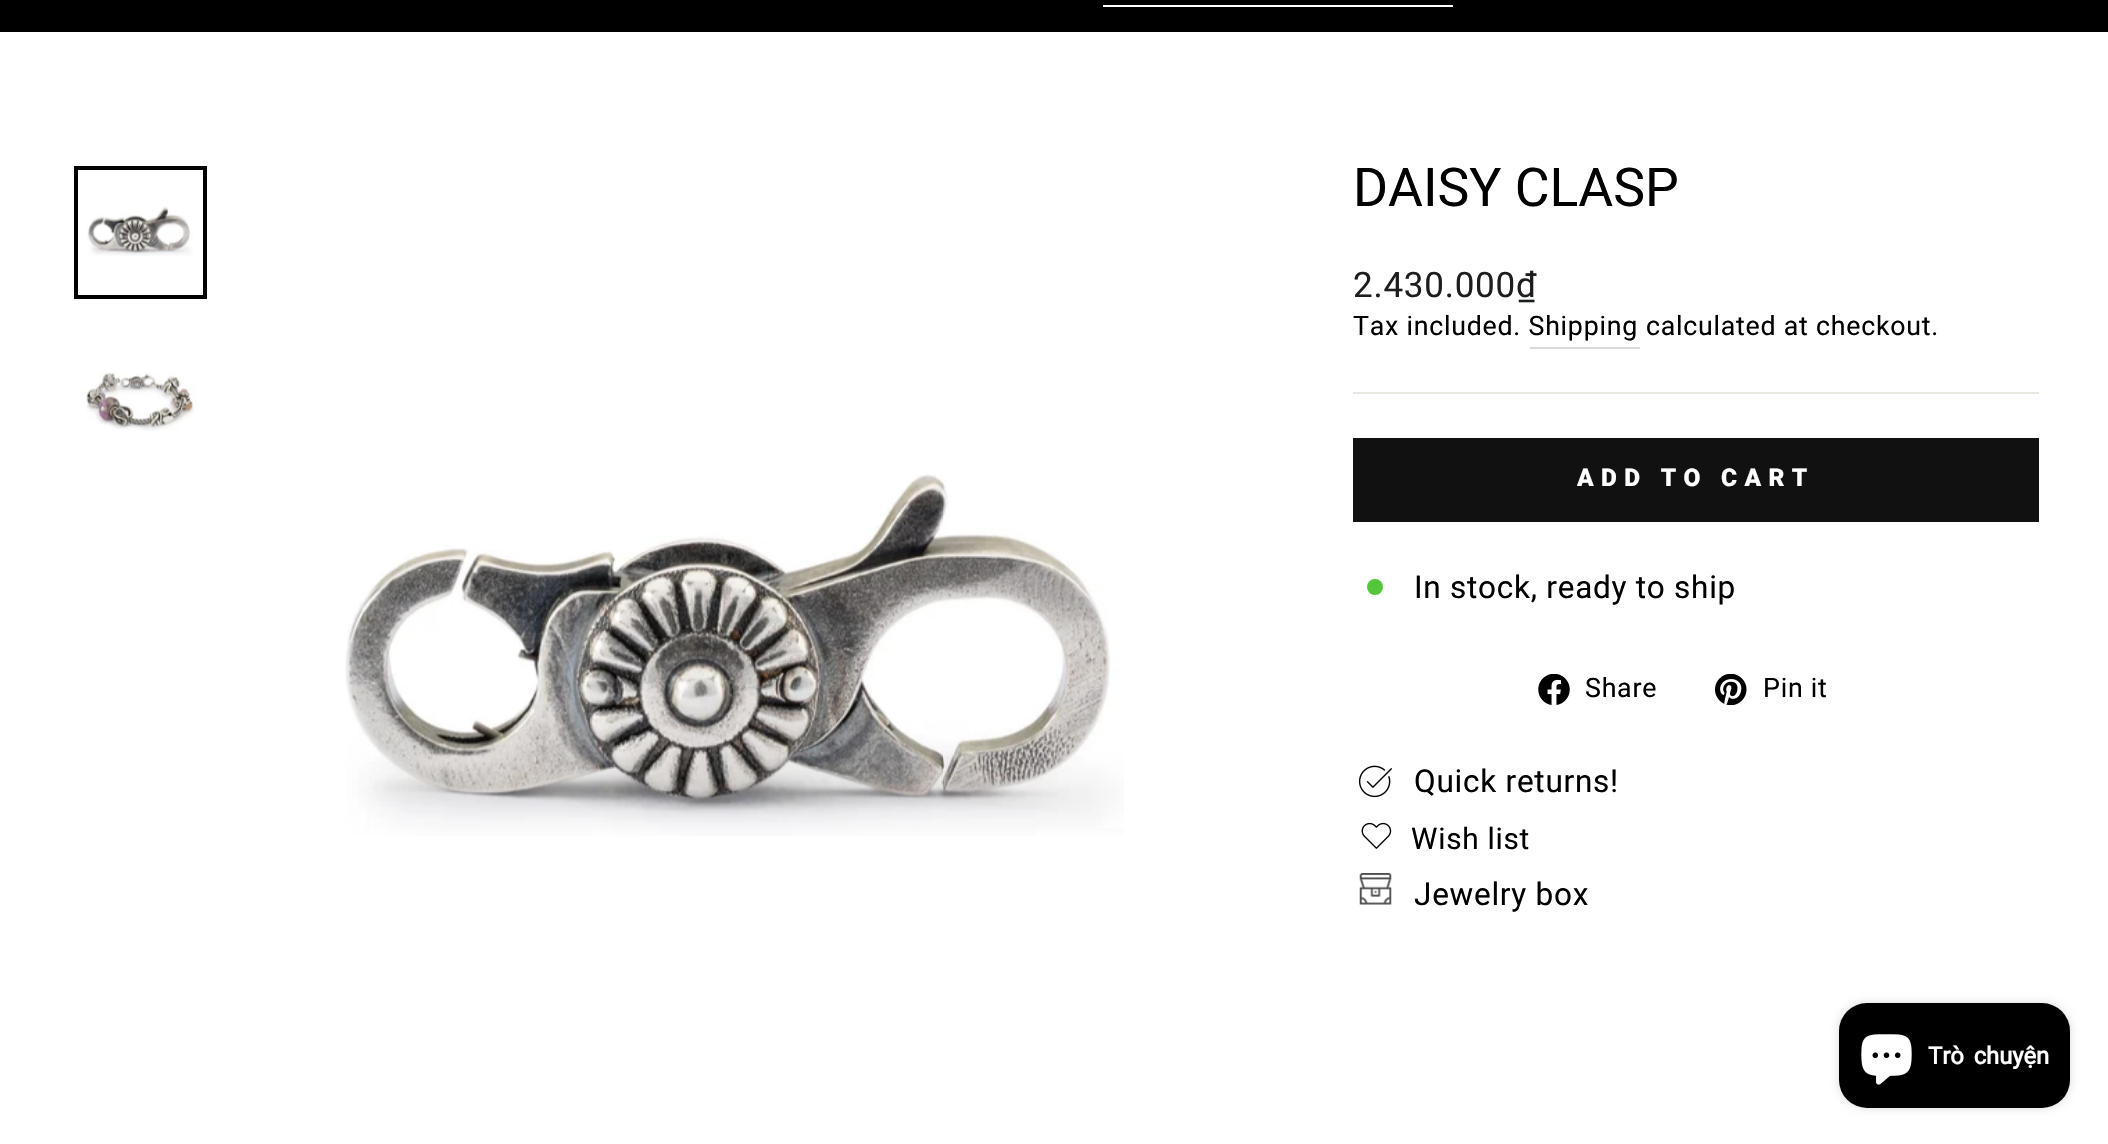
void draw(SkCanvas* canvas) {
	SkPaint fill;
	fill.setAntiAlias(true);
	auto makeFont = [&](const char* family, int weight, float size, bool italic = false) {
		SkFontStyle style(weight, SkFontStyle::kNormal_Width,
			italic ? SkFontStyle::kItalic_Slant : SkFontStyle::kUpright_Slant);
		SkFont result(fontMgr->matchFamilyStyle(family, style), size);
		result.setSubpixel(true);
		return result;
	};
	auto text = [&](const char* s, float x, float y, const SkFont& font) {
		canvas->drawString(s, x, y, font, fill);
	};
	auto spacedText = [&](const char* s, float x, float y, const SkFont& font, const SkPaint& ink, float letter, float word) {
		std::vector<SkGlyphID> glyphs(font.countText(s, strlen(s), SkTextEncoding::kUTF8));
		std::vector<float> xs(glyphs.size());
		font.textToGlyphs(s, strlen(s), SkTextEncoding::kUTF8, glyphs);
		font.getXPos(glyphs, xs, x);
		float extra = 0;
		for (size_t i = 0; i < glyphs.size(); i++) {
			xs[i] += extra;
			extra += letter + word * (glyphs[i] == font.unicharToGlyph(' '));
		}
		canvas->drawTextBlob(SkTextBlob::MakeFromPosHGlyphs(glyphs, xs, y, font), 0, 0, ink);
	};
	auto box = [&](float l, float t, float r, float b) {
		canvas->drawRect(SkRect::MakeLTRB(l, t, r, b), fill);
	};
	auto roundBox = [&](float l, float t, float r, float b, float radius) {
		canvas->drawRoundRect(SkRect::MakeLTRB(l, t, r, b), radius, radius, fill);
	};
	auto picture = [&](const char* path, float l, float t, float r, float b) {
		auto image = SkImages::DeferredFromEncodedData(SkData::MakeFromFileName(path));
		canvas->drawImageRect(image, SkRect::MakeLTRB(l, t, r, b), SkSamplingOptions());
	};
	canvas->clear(0xFFFFFFFF);
	fill.setColor(0xFF000000);
	box(0, 0, 2108, 32);
	fill.setColor(0xFFFFFFFF);
	box(1103, 5, 1453, 7);
	picture("image0.png", 87, 206, 193, 256);
	fill.setStyle(SkPaint::kStroke_Style);
	fill.setStrokeWidth(4);
	fill.setColor(0xFF000000);
	canvas->drawRect(SkRect::MakeLTRB(76, 168, 205, 297), fill);
	picture("image1.png", 86, 372, 197, 431);
	picture("image2.png", 345, 474, 1124, 836);
	fill.setStyle(SkPaint::kFill_Style);
	fill.setColor(0xFFD9D9D9);
	box(1530, 347, 1640, 349);
	fill.setColor(0xFFE8E8E1);
	box(1353, 392, 2039, 394);
	fill.setColor(0xFF111111);
	box(1353, 438, 2039, 522);
	fill.setColor(0xFF54C63A);
	canvas->drawCircle(1375, 587, 8, fill);
	picture("image3.png", 1538, 674, 1570, 705);
	picture("image4.png", 1715, 674, 1747, 705);
	picture("image5.png", 1358, 765, 1393, 798);
	picture("image6.png", 1361, 822, 1392, 849);
	picture("image7.png", 1359, 873, 1392, 905);
	fill.setColor(0x26000000);
	fill.setMaskFilter(SkMaskFilter::MakeBlur(kNormal_SkBlurStyle, 4.5f));
	canvas->drawRoundRect(SkRect::MakeLTRB(1839, 1003, 2070, 1108), 28, 28, fill);
	fill.setMaskFilter(nullptr);
	fill.setColor(0xFF000000);
	roundBox(1839, 1003, 2070, 1108, 28);
	picture("image8.png", 1861, 1034, 1912, 1085);
	auto font1 = makeFont("Roboto", 400, 53.5f);
	text("DAISY CLASP", 1353, 206, font1);
	auto font2 = makeFont("Roboto", 400, 35);
	fill.setColor(0xFF1C1D1D);
	spacedText("2.430.000₫", 1353, 297, font2, fill, 0.75f, 0);
	auto font3 = makeFont("Roboto", 400, 26.75f);
	fill.setColor(0xFF000000);
	spacedText("Tax included. Shipping", 1353, 335, font3, fill, 0.75f, 0);
	spacedText("calculated at checkout.", 1646, 335, font3, fill, 0.75f, 0);
	auto font4 = makeFont("Roboto", 900, 24.5f);
	fill.setColor(0xFFFFFFFF);
	spacedText("ADD TO CART", 1577, 486, font4, fill, 7.3f, 0);
	auto font5 = makeFont("Roboto", 400, 31.5f);
	fill.setColor(0xFF000000);
	spacedText("In stock, ready to ship", 1414, 598, font5, fill, 0.75f, 0);
	spacedText("Share", 1585, 697, font3, fill, 0.75f, 0);
	spacedText("Pin it", 1763, 697, font3, fill, 0.75f, 0);
	spacedText("Quick returns!", 1414, 792, font5, fill, 0.75f, 0);
	auto font6 = makeFont("Roboto", 400, 29.75f);
	spacedText("Wish list", 1411, 849, font6, fill, 0.75f, 0);
	spacedText("Jewelry box", 1414, 905, font5, fill, 0.75f, 0);
	auto font7 = makeFont("Roboto", 700, 23.75f);
	fill.setColor(0xFFFFFFFF);
	spacedText("Trò chuyện", 1928, 1064, font7, fill, 0, 4);
}
